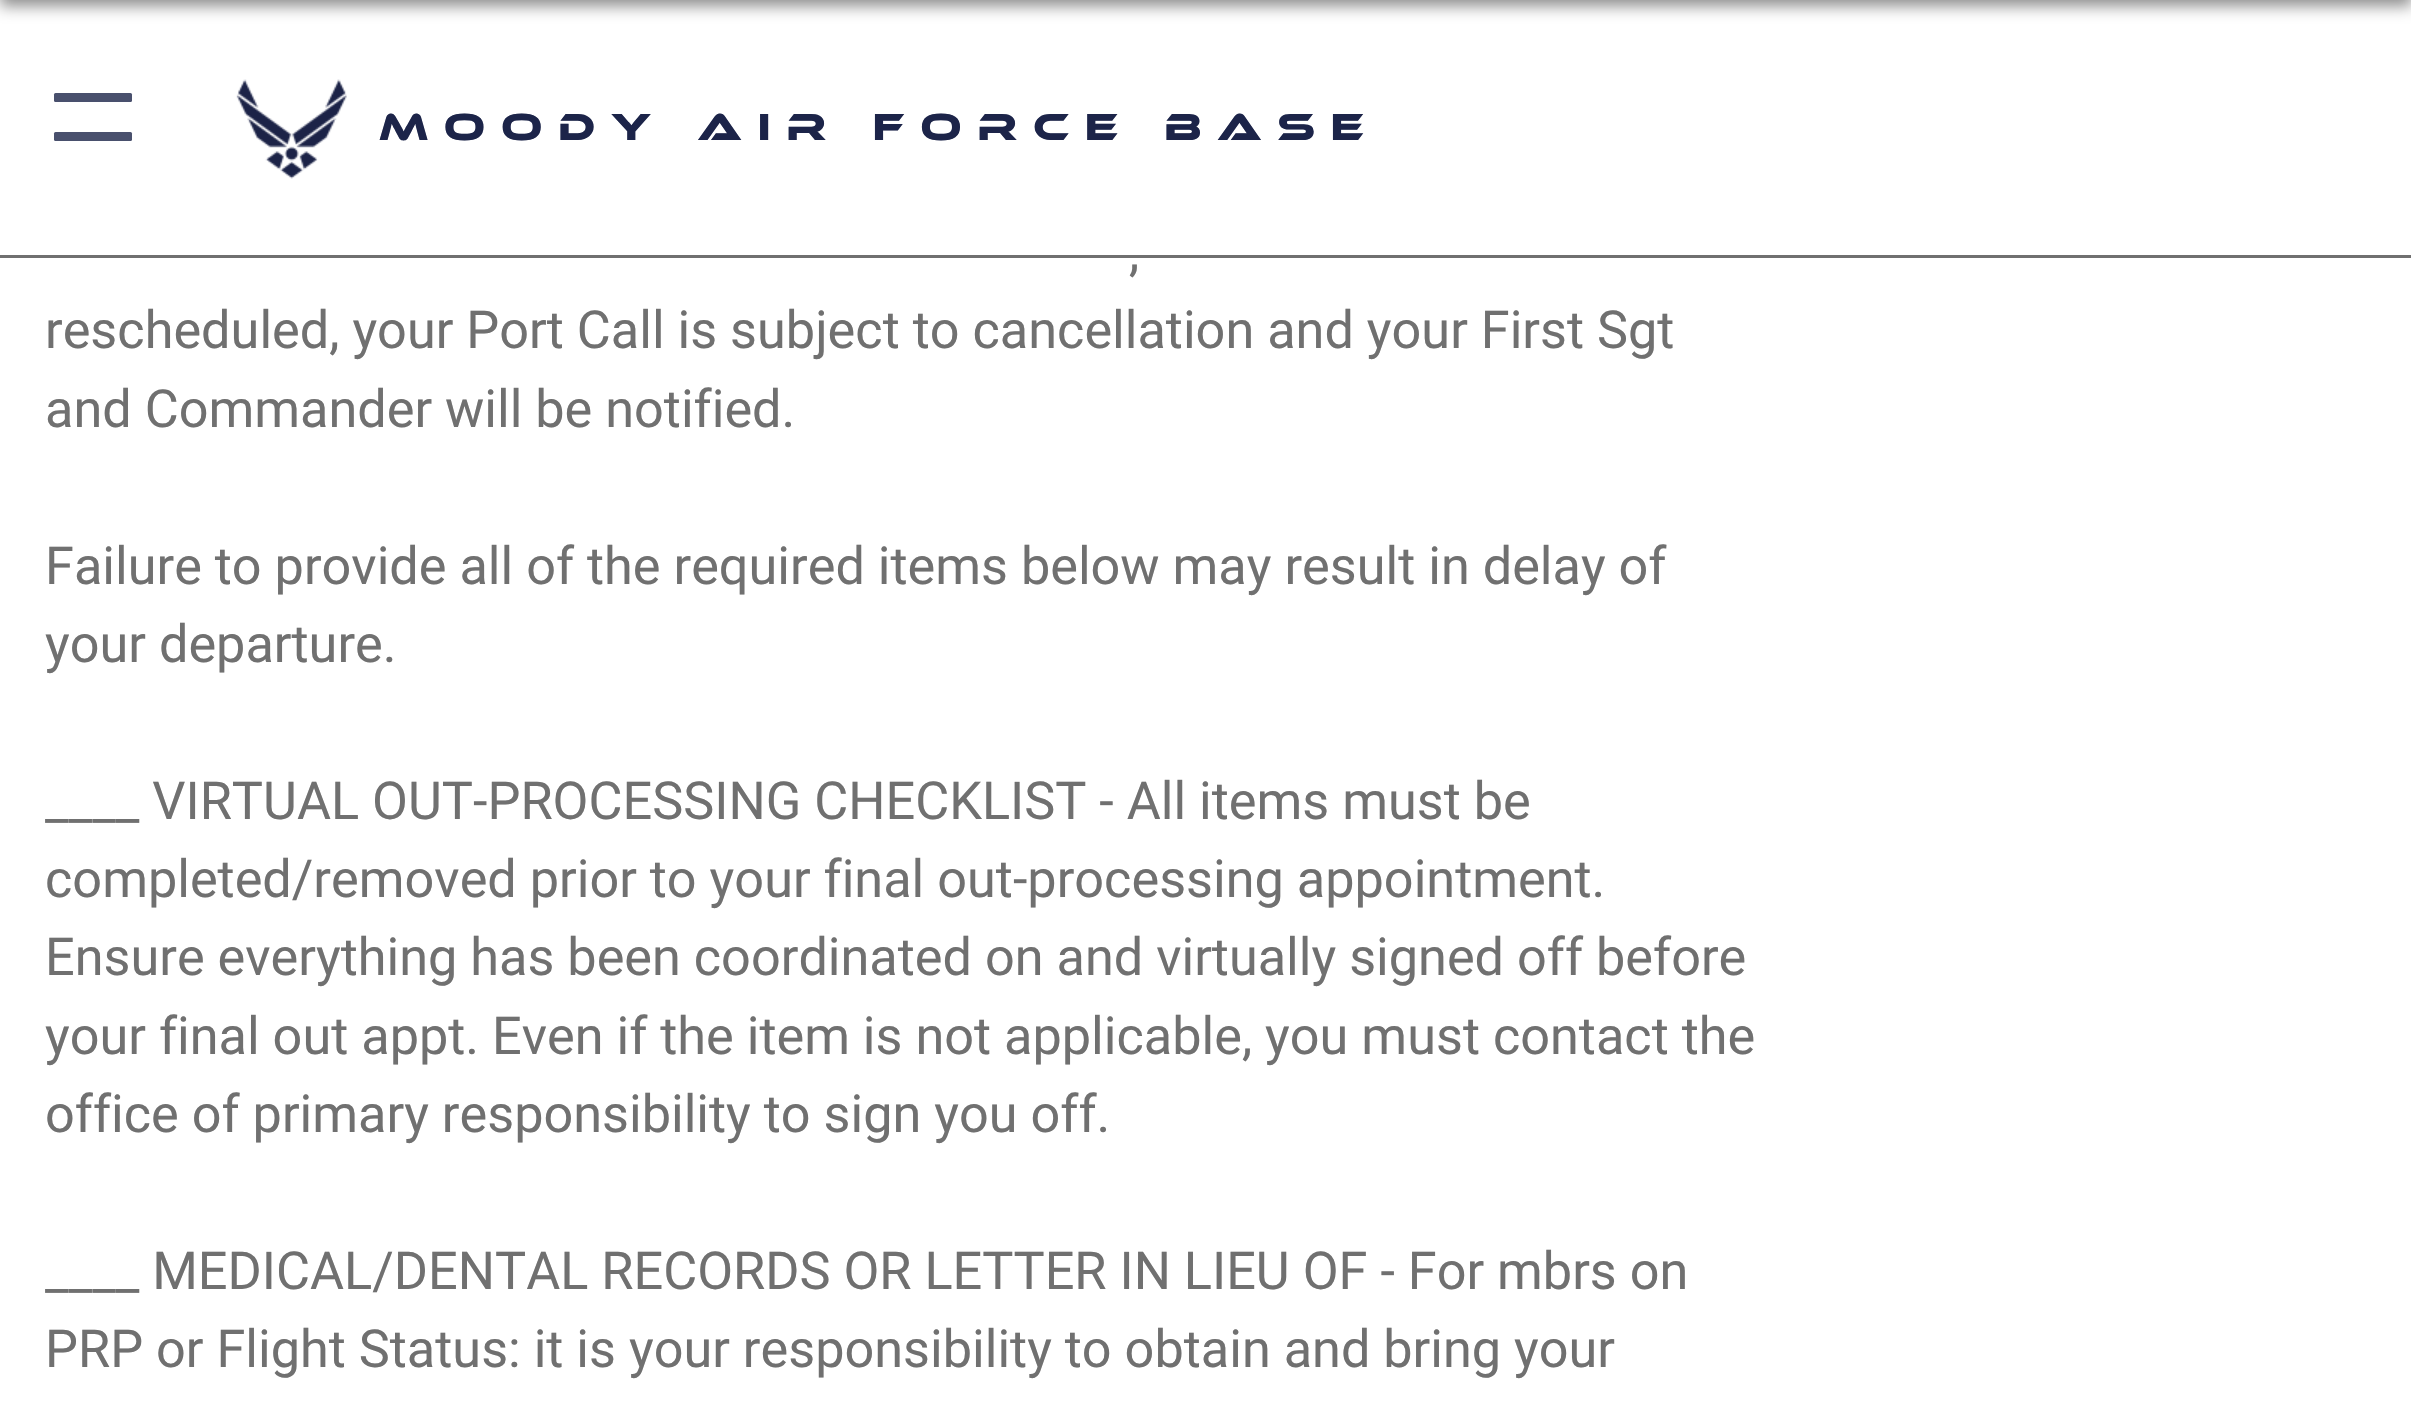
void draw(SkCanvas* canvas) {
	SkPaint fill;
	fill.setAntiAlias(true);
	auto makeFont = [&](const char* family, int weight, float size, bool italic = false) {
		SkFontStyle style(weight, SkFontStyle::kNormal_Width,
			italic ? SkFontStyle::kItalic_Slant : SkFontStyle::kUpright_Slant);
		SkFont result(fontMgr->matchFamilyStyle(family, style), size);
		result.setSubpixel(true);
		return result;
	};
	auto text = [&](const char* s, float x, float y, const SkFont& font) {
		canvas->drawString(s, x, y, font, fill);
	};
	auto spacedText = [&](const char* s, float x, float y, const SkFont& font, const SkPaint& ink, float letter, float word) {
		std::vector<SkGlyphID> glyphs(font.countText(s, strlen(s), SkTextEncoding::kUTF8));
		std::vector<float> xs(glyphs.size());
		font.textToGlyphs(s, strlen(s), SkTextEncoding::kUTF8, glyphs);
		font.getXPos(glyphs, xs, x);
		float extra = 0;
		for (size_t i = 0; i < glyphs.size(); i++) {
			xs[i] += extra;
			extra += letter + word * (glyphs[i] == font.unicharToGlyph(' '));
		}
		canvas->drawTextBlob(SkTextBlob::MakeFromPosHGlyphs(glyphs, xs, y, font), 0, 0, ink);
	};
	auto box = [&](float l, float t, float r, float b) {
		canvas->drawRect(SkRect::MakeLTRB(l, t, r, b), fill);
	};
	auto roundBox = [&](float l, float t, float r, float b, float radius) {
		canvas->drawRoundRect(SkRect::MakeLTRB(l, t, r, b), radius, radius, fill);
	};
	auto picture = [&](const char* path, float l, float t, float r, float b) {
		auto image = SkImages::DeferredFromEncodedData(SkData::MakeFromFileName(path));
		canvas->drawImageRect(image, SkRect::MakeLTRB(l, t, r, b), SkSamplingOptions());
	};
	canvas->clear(0xFFFFFFFF);
	fill.setColor(0x73000000);
	fill.setMaskFilter(SkMaskFilter::MakeBlur(kNormal_SkBlurStyle, 7.5f));
	canvas->drawRect(SkRect::MakeLTRB(0, -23, 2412, 6), fill);
	fill.setMaskFilter(nullptr);
	fill.setColor(0xFF707070);
	box(0, 255, 2411, 258);
	fill.setColor(0xCC1C2449);
	roundBox(54, 93, 132, 102, 1.5f);
	fill.setColor(0xFF49506D);
	roundBox(54, 132, 132, 141, 1.5f);
	picture("image0.png", 236, 79, 347, 179);
	auto font1 = makeFont("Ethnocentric", 400, 39);
	fill.setColor(0xFF1C2449);
	spacedText("Moody Air Force Base", 379, 140, font1, fill, 15.7f, 0);
	auto font2 = makeFont("Roboto", 400, 52.25f);
	fill.setColor(0xFF707070);
	text(",", 1129, 270, font2);
	text("rescheduled, your Port Call is subject to cancellation and your First Sgt", 45, 348, font2);
	text("and Commander will be notified.", 45, 427, font2);
	text("Failure to provide all of the required items below may result in delay of", 45, 584, font2);
	text("your departure.", 45, 662, font2);
	text("____ VIRTUAL OUT-PROCESSING CHECKLIST - All items must be", 45, 819, font2);
	text("completed/removed prior to your final out-processing appointment.", 45, 897, font2);
	text("Ensure everything has been coordinated on and virtually signed off before", 45, 975, font2);
	text("your final out appt. Even if the item is not applicable, you must contact the", 45, 1054, font2);
	text("office of primary responsibility to sign you off.", 45, 1132, font2);
	text("____ MEDICAL/DENTAL RECORDS OR LETTER IN LIEU OF - For mbrs on", 45, 1289, font2);
	text("PRP or Flight Status: it is your responsibility to obtain and bring your", 45, 1367, font2);
}
